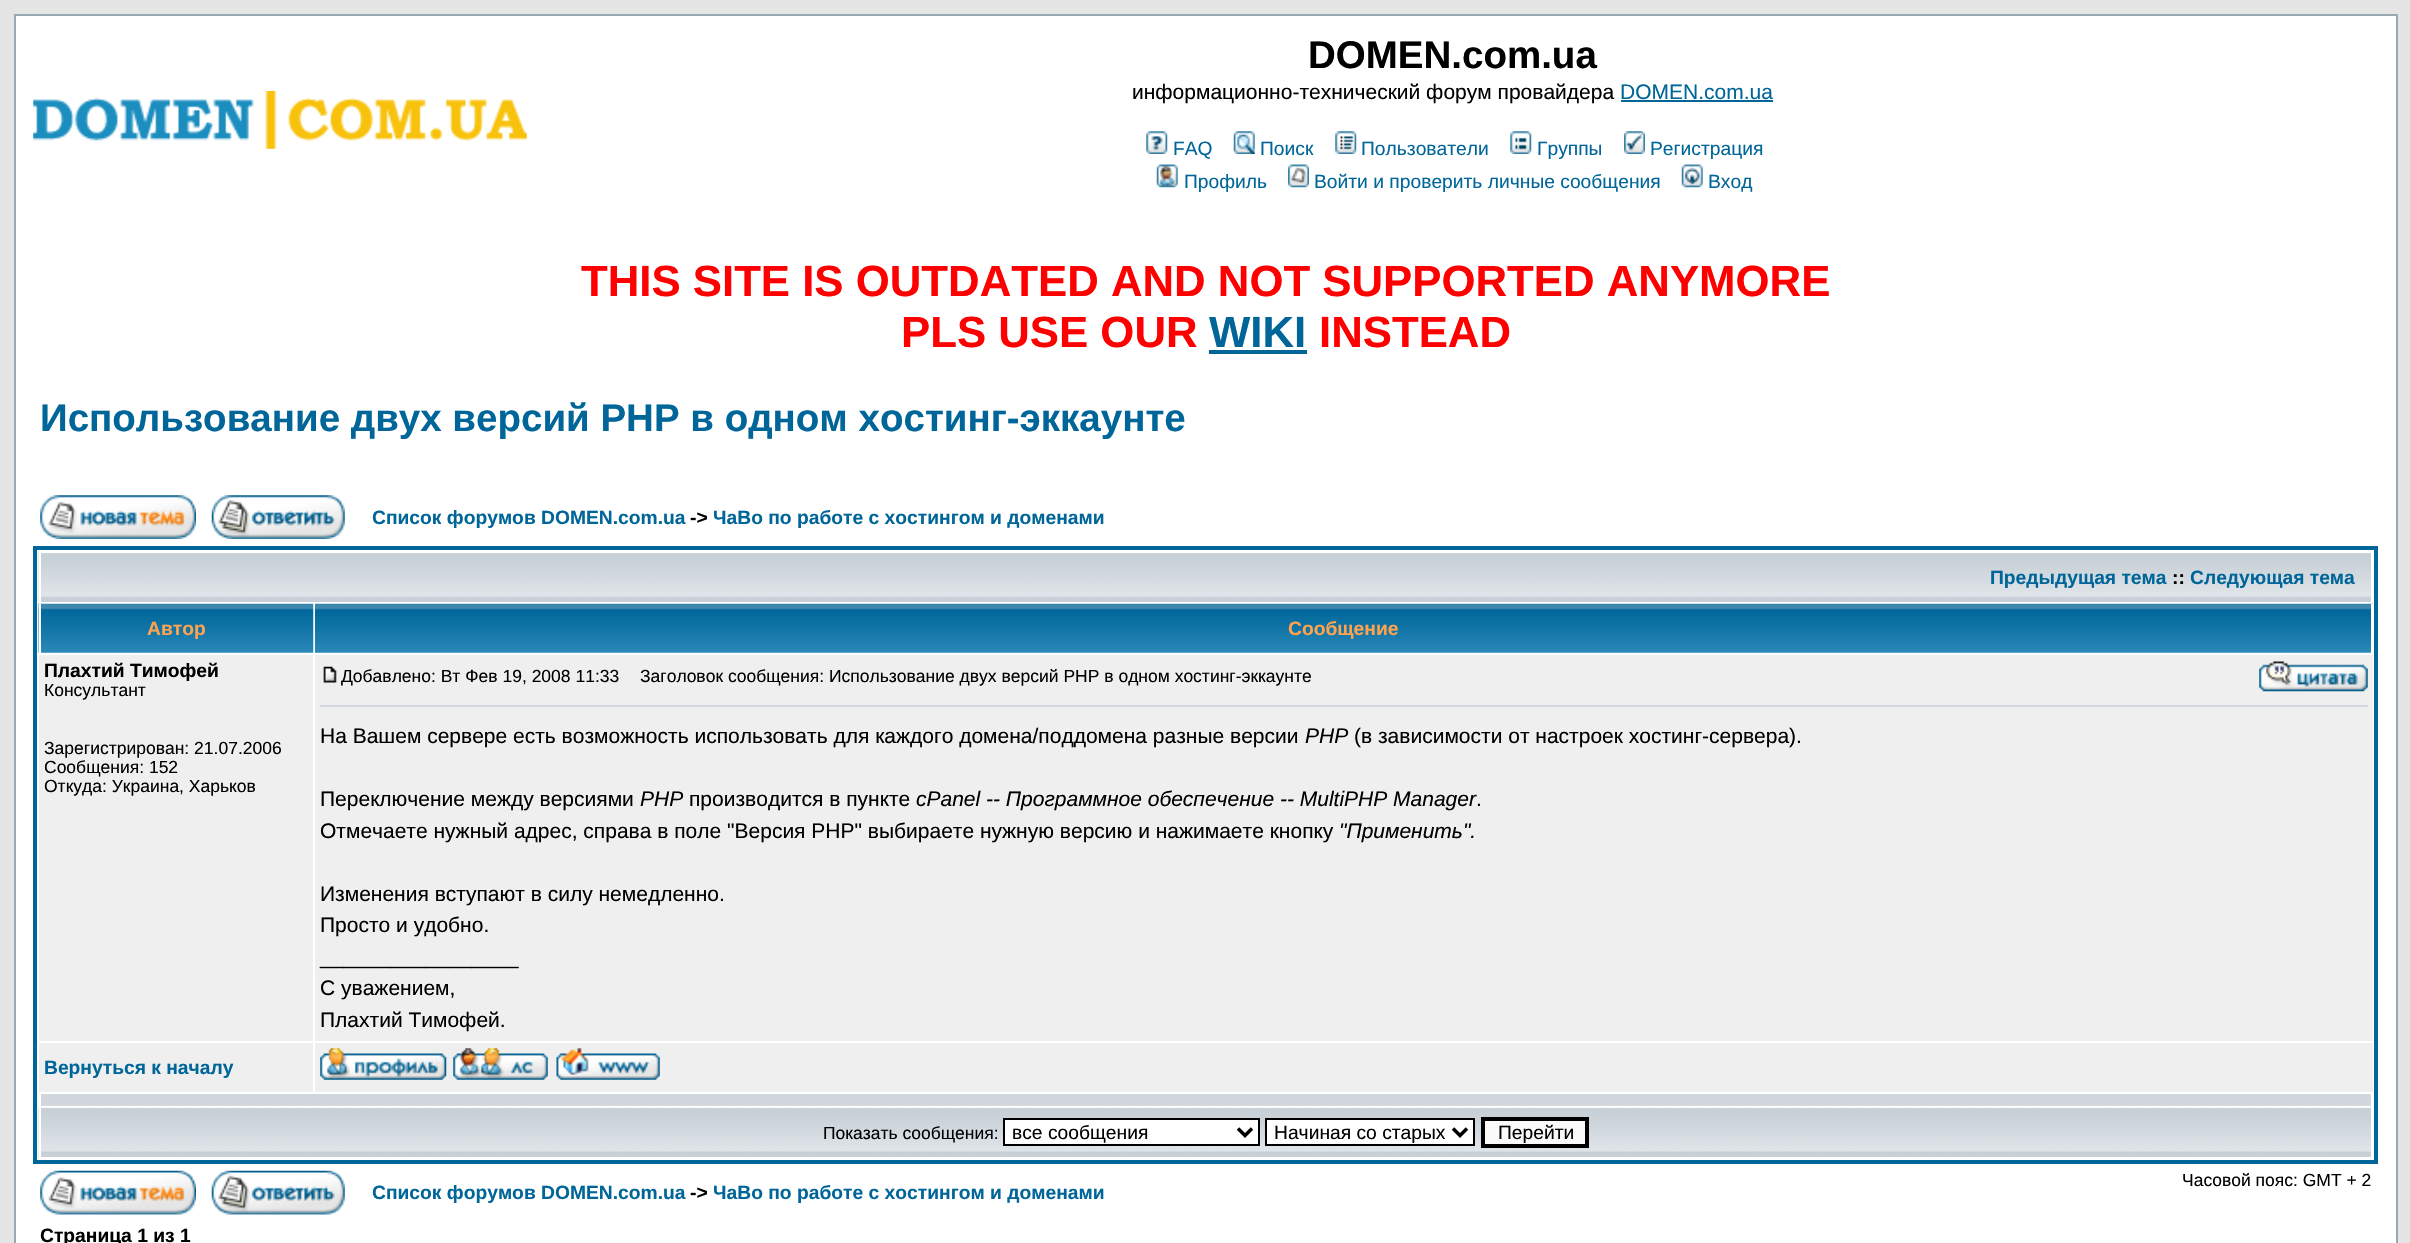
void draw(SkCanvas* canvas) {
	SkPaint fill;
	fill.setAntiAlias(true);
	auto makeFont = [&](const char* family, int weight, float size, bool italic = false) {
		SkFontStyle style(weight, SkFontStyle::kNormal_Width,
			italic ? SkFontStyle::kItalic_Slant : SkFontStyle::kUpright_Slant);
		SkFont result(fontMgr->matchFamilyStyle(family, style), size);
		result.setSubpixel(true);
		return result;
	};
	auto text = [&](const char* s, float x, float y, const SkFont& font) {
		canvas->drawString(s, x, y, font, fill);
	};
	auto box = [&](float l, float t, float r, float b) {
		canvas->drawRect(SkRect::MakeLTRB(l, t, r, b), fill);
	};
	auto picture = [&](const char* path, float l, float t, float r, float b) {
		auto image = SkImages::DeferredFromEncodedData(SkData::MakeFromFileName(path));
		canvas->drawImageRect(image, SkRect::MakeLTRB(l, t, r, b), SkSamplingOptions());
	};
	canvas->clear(0xFFE5E5E5);
	fill.setColor(0xFFFFFFFF);
	canvas->drawRect(SkRect::MakeLTRB(15, 15, 2397, 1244), fill);
	fill.setStyle(SkPaint::kStroke_Style);
	fill.setStrokeWidth(2);
	fill.setColor(0xFF98AAB1);
	canvas->drawRect(SkRect::MakeLTRB(15, 15, 2397, 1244), fill);
	picture("image0.png", 33, 91, 527, 149);
	fill.setStyle(SkPaint::kFill_Style);
	fill.setColor(0xFF006699);
	box(1621, 100, 1773, 102);
	picture("image1.png", 1146, 131, 1168, 154);
	picture("image2.png", 1233, 131, 1255, 154);
	picture("image3.png", 1335, 131, 1357, 154);
	picture("image4.png", 1510, 131, 1532, 154);
	picture("image5.png", 1624, 131, 1645, 154);
	picture("image6.png", 1156, 164, 1178, 188);
	picture("image7.png", 1288, 164, 1309, 188);
	picture("image8.png", 1681, 164, 1703, 188);
	box(1209, 350, 1307, 354);
	picture("image9.png", 40, 495, 196, 539);
	picture("image10.png", 211, 495, 345, 539);
	fill.setStyle(SkPaint::kStroke_Style);
	fill.setStrokeWidth(4);
	canvas->drawRect(SkRect::MakeLTRB(35, 548, 2376, 1162), fill);
	picture("image11.png", 38, 551, 2371, 602);
	fill.setStyle(SkPaint::kFill_Style);
	fill.setColor(0xFFFFFFFF);
	box(39, 551, 2373, 553);
	box(39, 551, 41, 602);
	picture("image12.png", 38, 603, 314, 653);
	box(39, 604, 41, 653);
	picture("image13.png", 315, 603, 2373, 653);
	box(2371, 604, 2373, 653);
	fill.setColor(0xFFEFEFEF);
	box(39, 655, 313, 1041);
	box(315, 655, 2373, 1041);
	picture("image14.png", 323, 666, 337, 683);
	picture("image15.png", 2259, 661, 2368, 692);
	fill.setColor(0xFFD1D7DC);
	box(320, 705, 2368, 707);
	fill.setColor(0xFFEFEFEF);
	box(39, 1043, 313, 1092);
	box(315, 1043, 2373, 1092);
	picture("image16.png", 320, 1048, 447, 1080);
	picture("image17.png", 453, 1048, 548, 1080);
	picture("image18.png", 556, 1048, 660, 1080);
	fill.setColor(0xFFD1D7DC);
	box(41, 1094, 2371, 1106);
	picture("image19.png", 38, 1107, 2373, 1159);
	fill.setColor(0xFFFFFFFF);
	box(2371, 1108, 2373, 1159);
	box(39, 1157, 2373, 1159);
	box(39, 1108, 41, 1159);
	canvas->drawRect(SkRect::MakeLTRB(1004, 1119, 1259, 1145), fill);
	fill.setStyle(SkPaint::kStroke_Style);
	fill.setStrokeWidth(2);
	fill.setColor(0xFF000000);
	canvas->drawRect(SkRect::MakeLTRB(1004, 1119, 1259, 1145), fill);
	fill.setStrokeWidth(3.5f);
	canvas->drawPath(SkPathBuilder().moveTo(1238, 1128.5f).lineTo(1245, 1135.5f).lineTo(1252, 1128.5f).detach(), fill);
	fill.setStyle(SkPaint::kFill_Style);
	fill.setColor(0xFFFFFFFF);
	canvas->drawRect(SkRect::MakeLTRB(1266, 1119, 1474, 1145), fill);
	fill.setStyle(SkPaint::kStroke_Style);
	fill.setStrokeWidth(2);
	fill.setColor(0xFF000000);
	canvas->drawRect(SkRect::MakeLTRB(1266, 1119, 1474, 1145), fill);
	fill.setStrokeWidth(3.5f);
	canvas->drawPath(SkPathBuilder().moveTo(1453, 1128.5f).lineTo(1460, 1135.5f).lineTo(1467, 1128.5f).detach(), fill);
	fill.setStyle(SkPaint::kFill_Style);
	fill.setColor(0xFFFAFAFA);
	canvas->drawRect(SkRect::MakeLTRB(1483, 1119, 1587, 1146), fill);
	fill.setStyle(SkPaint::kStroke_Style);
	fill.setStrokeWidth(4);
	fill.setColor(0xFF000000);
	canvas->drawRect(SkRect::MakeLTRB(1483, 1119, 1587, 1146), fill);
	picture("image20.png", 40, 1170, 196, 1215);
	picture("image21.png", 211, 1170, 345, 1215);
	auto font1 = makeFont("Liberation Sans", 700, 38.5f);
	fill.setStyle(SkPaint::kFill_Style);
	text("DOMEN.com.ua", 1308, 68, font1);
	auto font2 = makeFont("Liberation Sans", 400, 21);
	text("информационно-технический форум провайдера", 1132, 99, font2);
	fill.setColor(0xFF006699);
	text("DOMEN.com.ua", 1620, 99, font2);
	auto font3 = makeFont("Liberation Sans", 400, 19.25f);
	text("FAQ", 1173, 155, font3);
	text("Поиск", 1260, 155, font3);
	text("Пользователи", 1361, 155, font3);
	text("Группы", 1537, 155, font3);
	text("Регистрация", 1650, 155, font3);
	text("Профиль", 1184, 188, font3);
	text("Войти и проверить личные сообщения", 1314, 188, font3);
	text("Вход", 1708, 188, font3);
	auto font4 = makeFont("Liberation Sans", 700, 43.75f);
	fill.setColor(0xFFFF0000);
	text("THIS SITE IS OUTDATED AND NOT SUPPORTED ANYMORE", 581, 296, font4);
	text("PLS USE OUR", 901, 347, font4);
	fill.setColor(0xFF006699);
	text("WIKI", 1209, 347, font4);
	fill.setColor(0xFFFF0000);
	text("INSTEAD", 1319, 347, font4);
	fill.setColor(0xFF006699);
	text("Использование двух версий PHP в одном хостинг-эккаунте", 40, 431, font1);
	auto font5 = makeFont("Liberation Sans", 700, 19.25f);
	text("Список форумов DOMEN.com.ua", 372, 524, font5);
	fill.setColor(0xFF000000);
	text("->", 690, 524, font5);
	fill.setColor(0xFF006699);
	text("ЧаВо по работе с хостингом и доменами", 713, 524, font5);
	text("Предыдущая тема", 1990, 584, font5);
	fill.setColor(0xFF000000);
	text("::", 2172, 584, font5);
	fill.setColor(0xFF006699);
	text("Следующая тема", 2190, 584, font5);
	fill.setColor(0xFFFFA34F);
	text("Автор", 147, 635, font5);
	text("Сообщение", 1288, 635, font5);
	fill.setColor(0xFF000000);
	text("Плахтий Тимофей", 44, 677, font5);
	auto font6 = makeFont("Liberation Sans", 400, 17.5f);
	text("Консультант", 44, 696, font6);
	text("Зарегистрирован: 21.07.2006", 44, 754, font6);
	text("Сообщения: 152", 44, 773, font6);
	text("Откуда: Украина, Харьков", 44, 792, font6);
	text("Добавлено: Вт Фев 19, 2008 11:33", 341, 682, font6);
	text("Заголовок сообщения: Использование двух версий PHP в одном хостинг-эккаунте", 640, 682, font6);
	text("На Вашем сервере есть возможность использовать для каждого домена/поддомена разные версии", 320, 743, font2);
	auto font7 = makeFont("Liberation Sans", 400, 21, true);
	text("PHP", 1305, 743, font7);
	text("(в зависимости от настроек хостинг-сервера).", 1354, 743, font2);
	text("Переключение между версиями", 320, 806, font2);
	text("PHP", 640, 806, font7);
	text("производится в пункте", 689, 806, font2);
	text("cPanel -- Программное обеспечение -- MultiPHP Manager", 916, 806, font7);
	text(".", 1476, 806, font2);
	text("Отмечаете нужный адрес, справа в поле \"Версия PHP\" выбираете нужную версию и нажимаете кнопку", 320, 838, font2);
	text("\"Применить\".", 1339, 838, font7);
	text("Изменения вступают в силу немедленно.", 320, 901, font2);
	text("Просто и удобно.", 320, 932, font2);
	text("_________________", 320, 964, font2);
	text("С уважением,", 320, 995, font2);
	text("Плахтий Тимофей.", 320, 1027, font2);
	fill.setColor(0xFF006699);
	text("Вернуться к началу", 44, 1074, font5);
	fill.setColor(0xFF000000);
	text("Показать сообщения:", 823, 1139, font6);
	text("все сообщения", 1012, 1139, font3);
	text("Начиная со старых", 1274, 1139, font3);
	text("Перейти", 1498, 1139, font3);
	text("Часовой пояс: GMT + 2", 2182, 1186, font6);
	fill.setColor(0xFF006699);
	text("Список форумов DOMEN.com.ua", 372, 1199, font5);
	fill.setColor(0xFF000000);
	text("->", 690, 1199, font5);
	fill.setColor(0xFF006699);
	text("ЧаВо по работе с хостингом и доменами", 713, 1199, font5);
	fill.setColor(0xFF000000);
	text("Страница 1 из 1", 40, 1242, font5);
}
